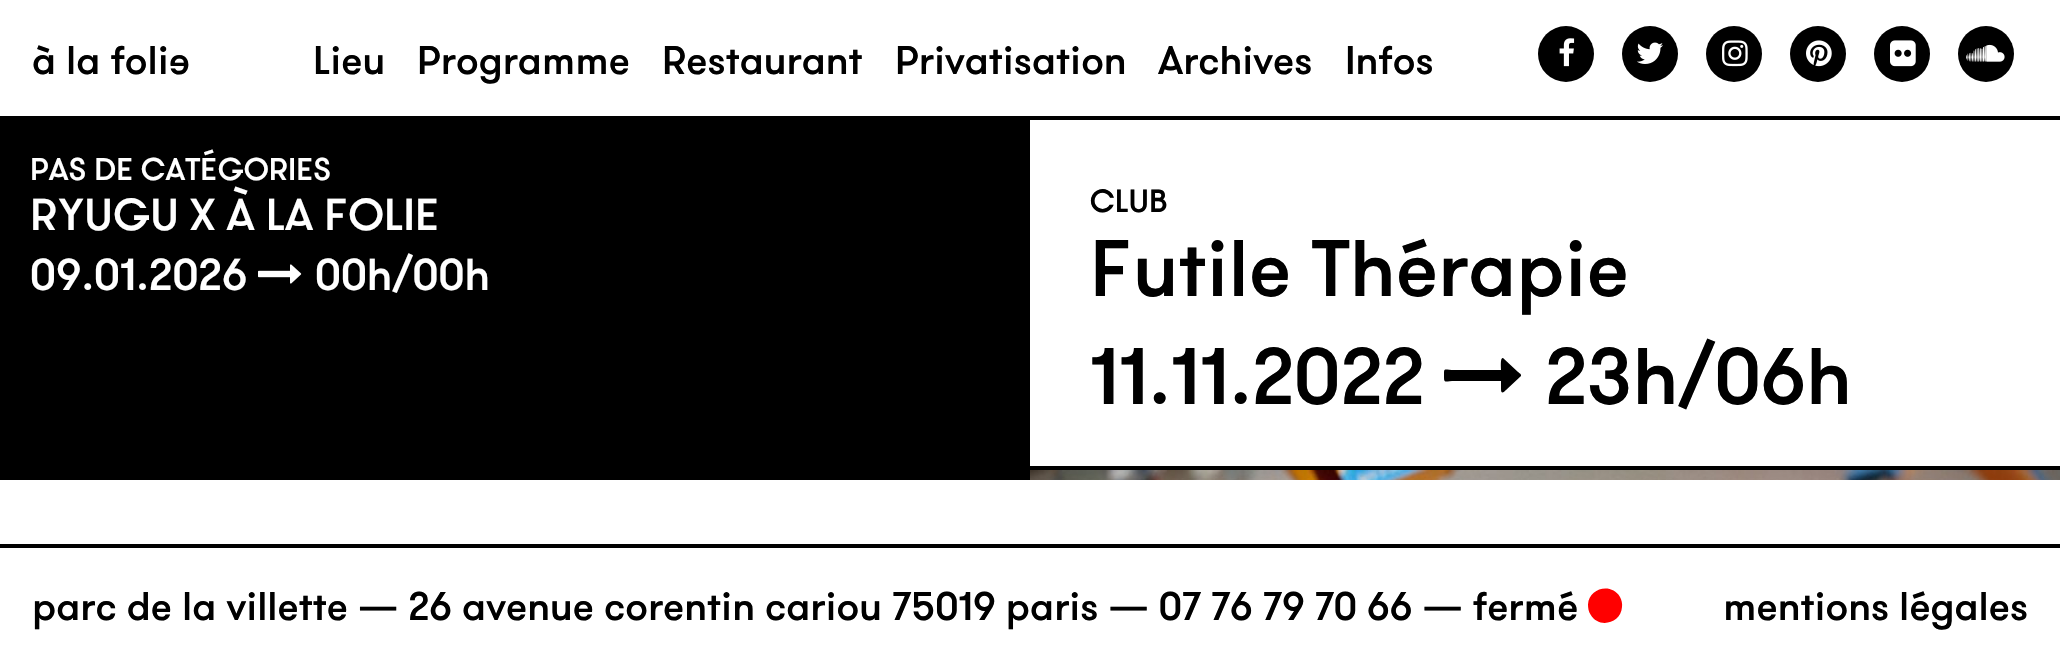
void draw(SkCanvas* canvas) {
	SkPaint fill;
	fill.setAntiAlias(true);
	auto makeFont = [&](const char* family, int weight, float size, bool italic = false) {
		SkFontStyle style(weight, SkFontStyle::kNormal_Width,
			italic ? SkFontStyle::kItalic_Slant : SkFontStyle::kUpright_Slant);
		SkFont result(fontMgr->matchFamilyStyle(family, style), size);
		result.setSubpixel(true);
		return result;
	};
	auto text = [&](const char* s, float x, float y, const SkFont& font) {
		canvas->drawString(s, x, y, font, fill);
	};
	auto box = [&](float l, float t, float r, float b) {
		canvas->drawRect(SkRect::MakeLTRB(l, t, r, b), fill);
	};
	auto picture = [&](const char* path, float l, float t, float r, float b) {
		auto image = SkImages::DeferredFromEncodedData(SkData::MakeFromFileName(path));
		canvas->drawImageRect(image, SkRect::MakeLTRB(l, t, r, b), SkSamplingOptions());
	};
	canvas->clear(0xFFFFFFFF);
	fill.setColor(0xFF000000);
	box(0, 116, 2060, 120);
	canvas->drawCircle(1566, 54, 28, fill);
	picture("image0.png", 1559, 38, 1575, 67);
	canvas->drawCircle(1650, 54, 28, fill);
	picture("image1.png", 1637, 42, 1663, 64);
	canvas->drawCircle(1734, 54, 28, fill);
	picture("image2.png", 1722, 40, 1748, 67);
	canvas->drawCircle(1818, 54, 28, fill);
	picture("image3.png", 1806, 40, 1832, 67);
	canvas->drawCircle(1902, 54, 28, fill);
	picture("image4.png", 1890, 40, 1916, 67);
	canvas->drawCircle(1986, 54, 28, fill);
	picture("image5.png", 1966, 44, 2005, 62);
	box(0, 120, 1030, 480);
	picture("image6.png", 258, 264, 302, 284);
	canvas->drawPath(SkPathBuilder().moveTo(1521, 375).lineTo(1521, 376).lineTo(1506, 390).cubicTo(1504, 392, 1501, 395, 1501, 389).lineTo(1501, 381).lineTo(1455, 381).cubicTo(1444, 381, 1444, 384, 1444, 375).cubicTo(1444, 367, 1444, 370, 1455, 370).lineTo(1501, 370).cubicTo(1501, 368, 1500, 357, 1503, 358).lineTo(1518, 372).cubicTo(1518, 372, 1521, 374, 1521, 375).close().detach(), fill);
	box(1030, 466, 2060, 470);
	picture("image7.png", 1030, 470, 2060, 480);
	box(0, 544, 2060, 548);
	fill.setColor(0xFFFF0000);
	canvas->drawPath(SkPathBuilder().moveTo(1620, 597).cubicTo(1621.5f, 600, 1622.5f, 603.5f, 1622, 607).cubicTo(1621, 623.5f, 1598.5f, 629, 1590.5f, 614.5f).cubicTo(1588.5f, 611.5f, 1588, 608, 1588, 604.5f).cubicTo(1589, 588, 1611.5f, 582.5f, 1620, 597).close().detach(), fill);
	auto font1 = makeFont("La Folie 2", 500, 40);
	fill.setColor(0xFF000000);
	text("à la folie", 32, 74, font1);
	auto font2 = makeFont("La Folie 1", 500, 40);
	text("Lieu", 313, 74, font2);
	text("Programme", 417, 74, font2);
	text("Restaurant", 662, 74, font2);
	text("Privatisation", 895, 74, font2);
	text("Archives", 1158, 74, font2);
	text("Infos", 1345, 74, font2);
	auto font3 = makeFont("La Folie 1", 500, 31.4f);
	fill.setColor(0xFFFFFFFF);
	text("PAS DE CATÉGORIES", 30, 180, font3);
	auto font4 = makeFont("La Folie 1", 500, 44.75f);
	text("RYUGU X À LA FOLIE", 30, 230, font4);
	text("09.01.2026", 30, 290, font4);
	text("00h/00h", 315, 290, font4);
	auto font5 = makeFont("La Folie 1", 500, 32);
	fill.setColor(0xFF000000);
	text("CLUB", 1090, 212, font5);
	auto font6 = makeFont("La Folie 1", 500, 80);
	text("Futile Thérapie", 1090, 296, font6);
	text("11.11.2022", 1090, 404, font6);
	text("23h/06h", 1545, 404, font6);
	text("parc de la villette — 26 avenue corentin cariou 75019 paris — 07 76 79 70 66 — fermé", 32, 620, font2);
	text("mentions légales", 1723, 620, font2);
}
